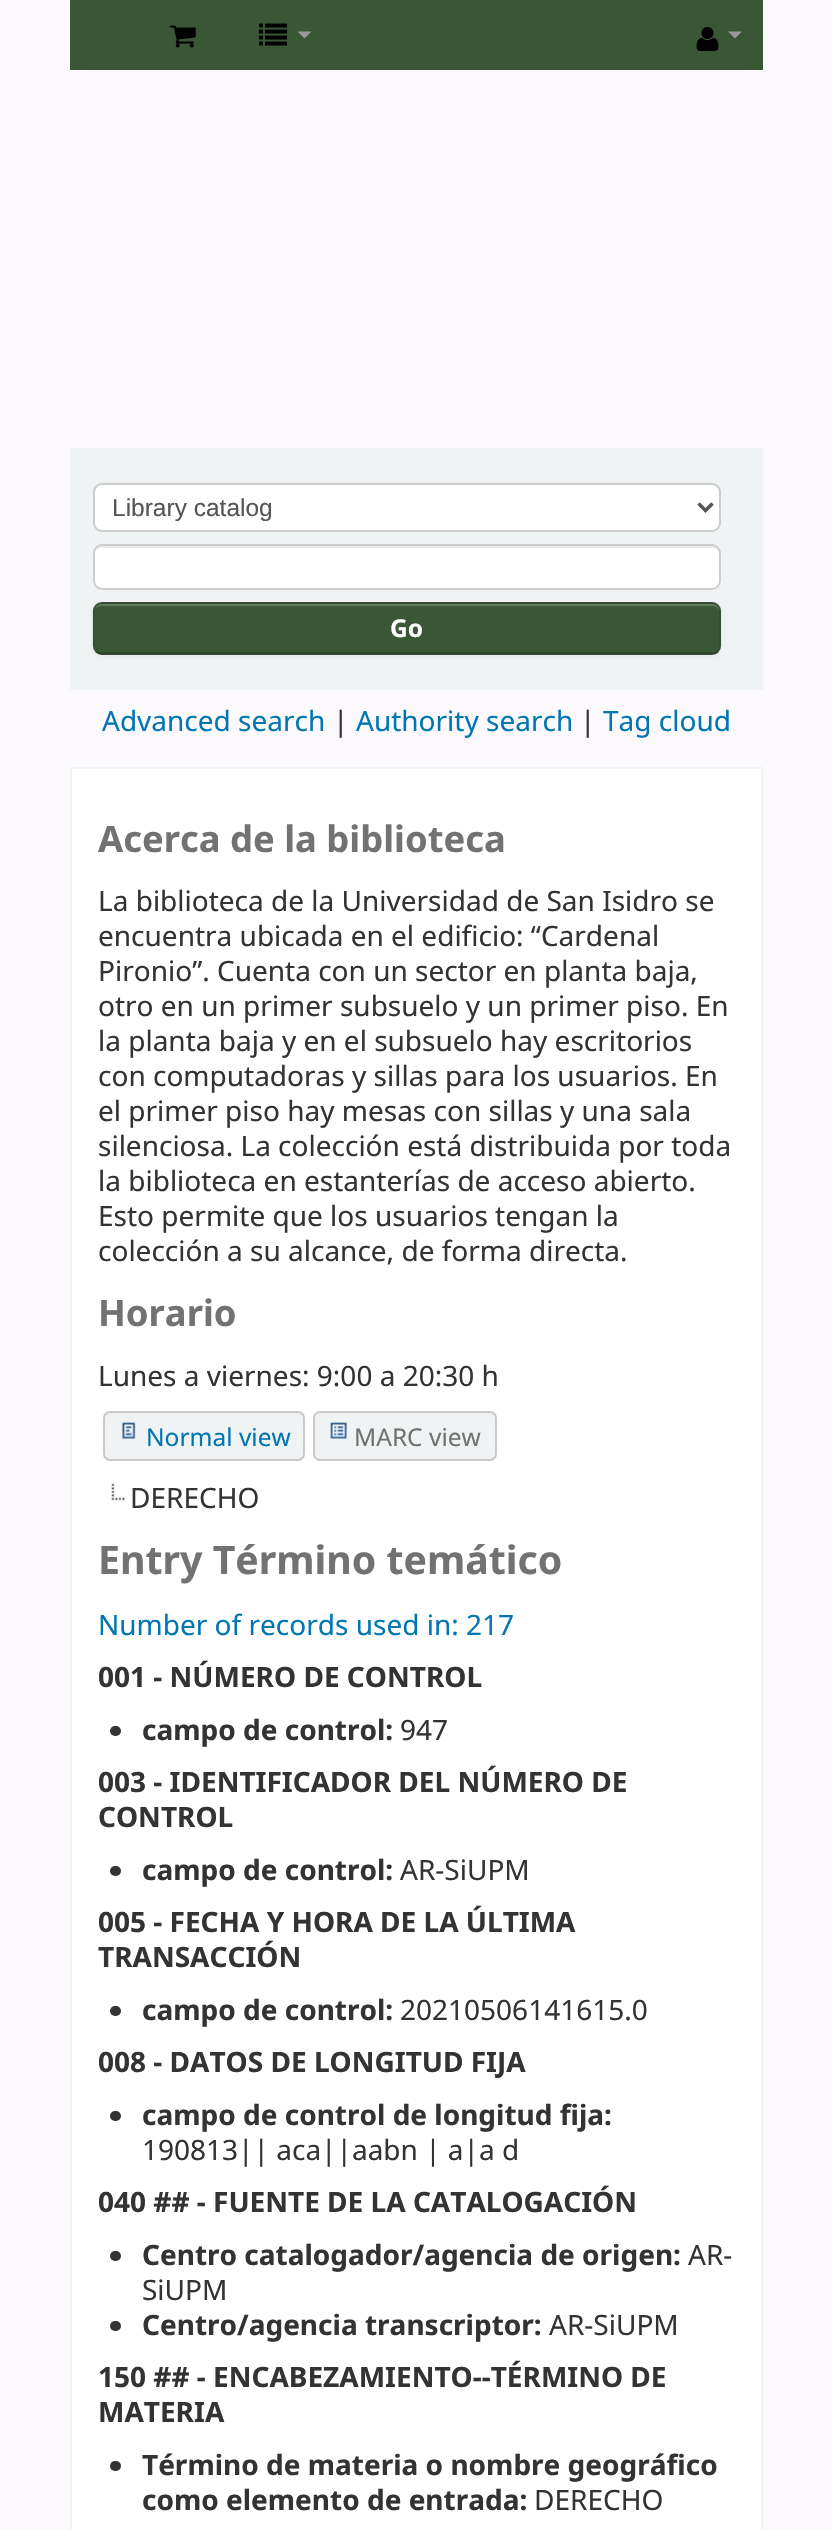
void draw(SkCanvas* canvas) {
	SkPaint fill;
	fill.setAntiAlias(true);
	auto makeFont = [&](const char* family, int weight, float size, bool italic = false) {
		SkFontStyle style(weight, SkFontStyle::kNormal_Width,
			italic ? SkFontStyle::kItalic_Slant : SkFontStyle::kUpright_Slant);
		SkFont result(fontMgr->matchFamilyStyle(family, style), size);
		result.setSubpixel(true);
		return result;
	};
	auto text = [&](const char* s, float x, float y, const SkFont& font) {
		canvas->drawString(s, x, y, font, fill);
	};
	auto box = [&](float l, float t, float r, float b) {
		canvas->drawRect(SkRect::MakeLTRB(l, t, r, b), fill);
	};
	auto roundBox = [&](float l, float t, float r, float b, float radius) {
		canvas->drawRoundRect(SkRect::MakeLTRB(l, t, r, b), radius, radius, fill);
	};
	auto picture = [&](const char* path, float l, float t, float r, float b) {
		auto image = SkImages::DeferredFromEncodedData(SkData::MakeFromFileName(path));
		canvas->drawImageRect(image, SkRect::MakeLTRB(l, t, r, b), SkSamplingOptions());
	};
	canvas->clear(0xFFFCF9FC);
	fill.setColor(0xFF395735);
	box(70, 0, 763, 70);
	picture("image0.png", 169, 25, 196, 48);
	picture("image1.png", 259, 23, 287, 46);
	fill.setColor(0xFF999999);
	canvas->drawPath(SkPathBuilder().moveTo(297.5f, 31.5f).lineTo(311.5f, 31.5f).lineTo(304.5f, 38.5f).close().detach(), fill);
	picture("image2.png", 696, 27, 719, 51);
	canvas->drawPath(SkPathBuilder().moveTo(728, 31.5f).lineTo(742, 31.5f).lineTo(735, 38.5f).close().detach(), fill);
	fill.setColor(0xFFF0F3F3);
	box(70, 448, 763, 690);
	fill.setColor(0xFFFFFFFF);
	canvas->drawRoundRect(SkRect::MakeLTRB(94, 484, 720, 531), 8, 8, fill);
	fill.setStyle(SkPaint::kStroke_Style);
	fill.setStrokeWidth(2);
	fill.setColor(0xFFCCCCCC);
	canvas->drawRoundRect(SkRect::MakeLTRB(94, 484, 720, 531), 8, 8, fill);
	fill.setStrokeWidth(3.5f);
	fill.setColor(0xFF555555);
	canvas->drawPath(SkPathBuilder().moveTo(698.5f, 503.5f).lineTo(705.5f, 510.5f).lineTo(712.5f, 503.5f).detach(), fill);
	fill.setStyle(SkPaint::kFill_Style);
	fill.setColor(0xFFFFFFFF);
	roundBox(93, 544, 721, 590, 9);
	fill.setColor(0xFFECECEC);
	canvas->drawPath(SkPathBuilder().moveTo(102, 548).lineTo(712, 548).cubicTo(716, 548, 719, 551, 719, 555).lineTo(719, 553).cubicTo(719, 549, 716, 546, 712, 546).lineTo(102, 546).cubicTo(99, 546, 96, 548, 95, 551).cubicTo(97, 549, 99, 548, 102, 548).close().detach(), fill);
	fill.setStyle(SkPaint::kStroke_Style);
	fill.setStrokeWidth(2);
	fill.setColor(0xFFCCCCCC);
	canvas->drawRoundRect(SkRect::MakeLTRB(94, 545, 720, 589), 8, 8, fill);
	fill.setStyle(SkPaint::kFill_Style);
	fill.setColor(0x0D000000);
	fill.setMaskFilter(SkMaskFilter::MakeBlur(kNormal_SkBlurStyle, 2));
	canvas->drawRoundRect(SkRect::MakeLTRB(93, 604, 721, 656), 9, 9, fill);
	fill.setMaskFilter(nullptr);
	fill.setColor(0xFF395735);
	roundBox(93, 602, 721, 655, 9);
	fill.setColor(0xFF61795D);
	canvas->drawPath(SkPathBuilder().moveTo(102, 606).lineTo(712, 606).cubicTo(716, 606, 719, 609, 719, 612).lineTo(719, 611).cubicTo(719, 607, 716, 604, 712, 604).lineTo(102, 604).cubicTo(99, 604, 96, 606, 95, 609).cubicTo(97, 607, 99, 606, 102, 606).close().detach(), fill);
	fill.setStyle(SkPaint::kStroke_Style);
	fill.setStrokeWidth(1.8f);
	fill.setColor(0x40000000);
	canvas->drawPath(SkPathBuilder().moveTo(718, 651.5f).cubicTo(716.5f, 653, 714.5f, 653.5f, 712, 653.5f).lineTo(101.5f, 653.5f).cubicTo(99.5f, 653.5f, 97.5f, 653, 96, 651.5f).detach(), fill);
	fill.setColor(0x1A000000);
	canvas->drawPath(SkPathBuilder().moveTo(96, 651.5f).cubicTo(94.5f, 650, 93.5f, 648, 93.5f, 646).lineTo(93.5f, 611).cubicTo(93.5f, 608.5f, 94.5f, 606.5f, 96, 605).cubicTo(97.5f, 603.5f, 99.5f, 603, 101.5f, 603).lineTo(712, 603).cubicTo(714.5f, 603, 716.5f, 603.5f, 718, 605).cubicTo(719.5f, 606.5f, 720, 608.5f, 720, 611).lineTo(720, 646).cubicTo(720, 648, 719.5f, 650, 718, 651.5f).detach(), fill);
	fill.setStyle(SkPaint::kFill_Style);
	fill.setColor(0xFFFFFFFF);
	canvas->drawRect(SkRect::MakeLTRB(71, 768, 762, 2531), fill);
	fill.setStyle(SkPaint::kStroke_Style);
	fill.setStrokeWidth(2);
	fill.setColor(0xFFF0F3F3);
	canvas->drawRect(SkRect::MakeLTRB(71, 768, 762, 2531), fill);
	fill.setStyle(SkPaint::kFill_Style);
	canvas->drawRoundRect(SkRect::MakeLTRB(104, 1412, 304, 1460), 6, 6, fill);
	fill.setStyle(SkPaint::kStroke_Style);
	fill.setColor(0xFFC9C9C9);
	canvas->drawRoundRect(SkRect::MakeLTRB(104, 1412, 304, 1460), 6, 6, fill);
	picture("image3.png", 122, 1422, 136, 1439);
	fill.setStyle(SkPaint::kFill_Style);
	fill.setColor(0xFFF0F3F3);
	canvas->drawRoundRect(SkRect::MakeLTRB(314, 1412, 496, 1460), 6, 6, fill);
	fill.setStyle(SkPaint::kStroke_Style);
	fill.setColor(0xFFC9C9C9);
	canvas->drawRoundRect(SkRect::MakeLTRB(314, 1412, 496, 1460), 6, 6, fill);
	picture("image4.png", 330, 1422, 347, 1439);
	picture("image5.png", 111, 1483, 125, 1501);
	fill.setStyle(SkPaint::kFill_Style);
	fill.setColor(0xFF333333);
	roundBox(110, 1726, 121, 1736, 5);
	roundBox(110, 1866, 121, 1876, 5);
	roundBox(110, 2006, 121, 2016, 5);
	roundBox(110, 2111, 121, 2121, 5);
	roundBox(110, 2251, 121, 2261, 5);
	roundBox(110, 2321, 121, 2331, 5);
	roundBox(110, 2461, 121, 2471, 5);
	auto font1 = makeFont("Liberation Sans", 400, 24.5f);
	fill.setColor(0xFF555555);
	text("Library catalog", 112, 516, font1);
	auto font2 = makeFont("Noto Sans", 700, 24.5f);
	fill.setColor(0xFFFFFFFF);
	text("Go", 390, 637, font2);
	auto font3 = makeFont("Noto Sans", 400, 28);
	fill.setColor(0xFF0076B2);
	text("Advanced search", 102, 731, font3);
	fill.setColor(0xFF333333);
	text("|", 333, 731, font3);
	fill.setColor(0xFF0076B2);
	text("Authority search", 356, 731, font3);
	fill.setColor(0xFF333333);
	text("|", 580, 731, font3);
	fill.setColor(0xFF0076B2);
	text("Tag cloud", 603, 731, font3);
	auto font4 = makeFont("Noto Sans", 700, 36.4f);
	fill.setColor(0xFF727272);
	text("Acerca de la biblioteca", 98, 852, font4);
	fill.setColor(0xFF333333);
	text("La biblioteca de la Universidad de San Isidro se", 98, 911, font3);
	text("encuentra ubicada en el edificio: “Cardenal", 98, 946, font3);
	text("Pironio”. Cuenta con un sector en planta baja,", 98, 981, font3);
	text("otro en un primer subsuelo y un primer piso. En", 98, 1016, font3);
	text("la planta baja y en el subsuelo hay escritorios", 98, 1051, font3);
	text("con computadoras y sillas para los usuarios. En", 98, 1086, font3);
	text("el primer piso hay mesas con sillas y una sala", 98, 1121, font3);
	text("silenciosa. La colección está distribuida por toda", 98, 1156, font3);
	text("la biblioteca en estanterías de acceso abierto.", 98, 1191, font3);
	text("Esto permite que los usuarios tengan la", 98, 1226, font3);
	text("colección a su alcance, de forma directa.", 98, 1261, font3);
	fill.setColor(0xFF727272);
	text("Horario", 98, 1326, font4);
	fill.setColor(0xFF333333);
	text("Lunes a viernes: 9:00 a 20:30 h", 98, 1386, font3);
	auto font5 = makeFont("Noto Sans", 400, 24.5f);
	fill.setColor(0xFF0076B2);
	text("Normal view", 146, 1446, font5);
	fill.setColor(0xFF727272);
	text("MARC view", 354, 1446, font5);
	fill.setColor(0xFF333333);
	text("DERECHO", 130, 1508, font3);
	auto font6 = makeFont("Noto Sans", 700, 39.25f);
	fill.setColor(0xFF727272);
	text("Entry Término temático", 98, 1574, font6);
	fill.setColor(0xFF0076B2);
	text("Number of records used in: 217", 98, 1635, font3);
	auto font7 = makeFont("Noto Sans", 700, 28);
	fill.setColor(0xFF333333);
	text("001 - NÚMERO DE CONTROL", 98, 1687, font7);
	text("campo de control:", 142, 1740, font7);
	text("947", 400, 1740, font3);
	text("003 - IDENTIFICADOR DEL NÚMERO DE", 98, 1792, font7);
	text("CONTROL", 98, 1827, font7);
	text("campo de control:", 142, 1880, font7);
	text("AR-SiUPM", 400, 1880, font3);
	text("005 - FECHA Y HORA DE LA ÚLTIMA", 98, 1932, font7);
	text("TRANSACCIÓN", 98, 1967, font7);
	text("campo de control:", 142, 2020, font7);
	text("20210506141615.0", 400, 2020, font3);
	text("008 - DATOS DE LONGITUD FIJA", 98, 2072, font7);
	text("campo de control de longitud fija:", 142, 2125, font7);
	text("190813|| aca||aabn | a|a d", 142, 2160, font3);
	text("040 ## - FUENTE DE LA CATALOGACIÓN", 98, 2212, font7);
	text("Centro catalogador/agencia de origen:", 142, 2265, font7);
	text("AR-", 688, 2265, font3);
	text("SiUPM", 142, 2300, font3);
	text("Centro/agencia transcriptor:", 142, 2335, font7);
	text("AR-SiUPM", 549, 2335, font3);
	text("150 ## - ENCABEZAMIENTO--TÉRMINO DE", 98, 2387, font7);
	text("MATERIA", 98, 2422, font7);
	text("Término de materia o nombre geográfico", 142, 2475, font7);
	text("como elemento de entrada:", 142, 2510, font7);
	text("DERECHO", 534, 2510, font3);
}
